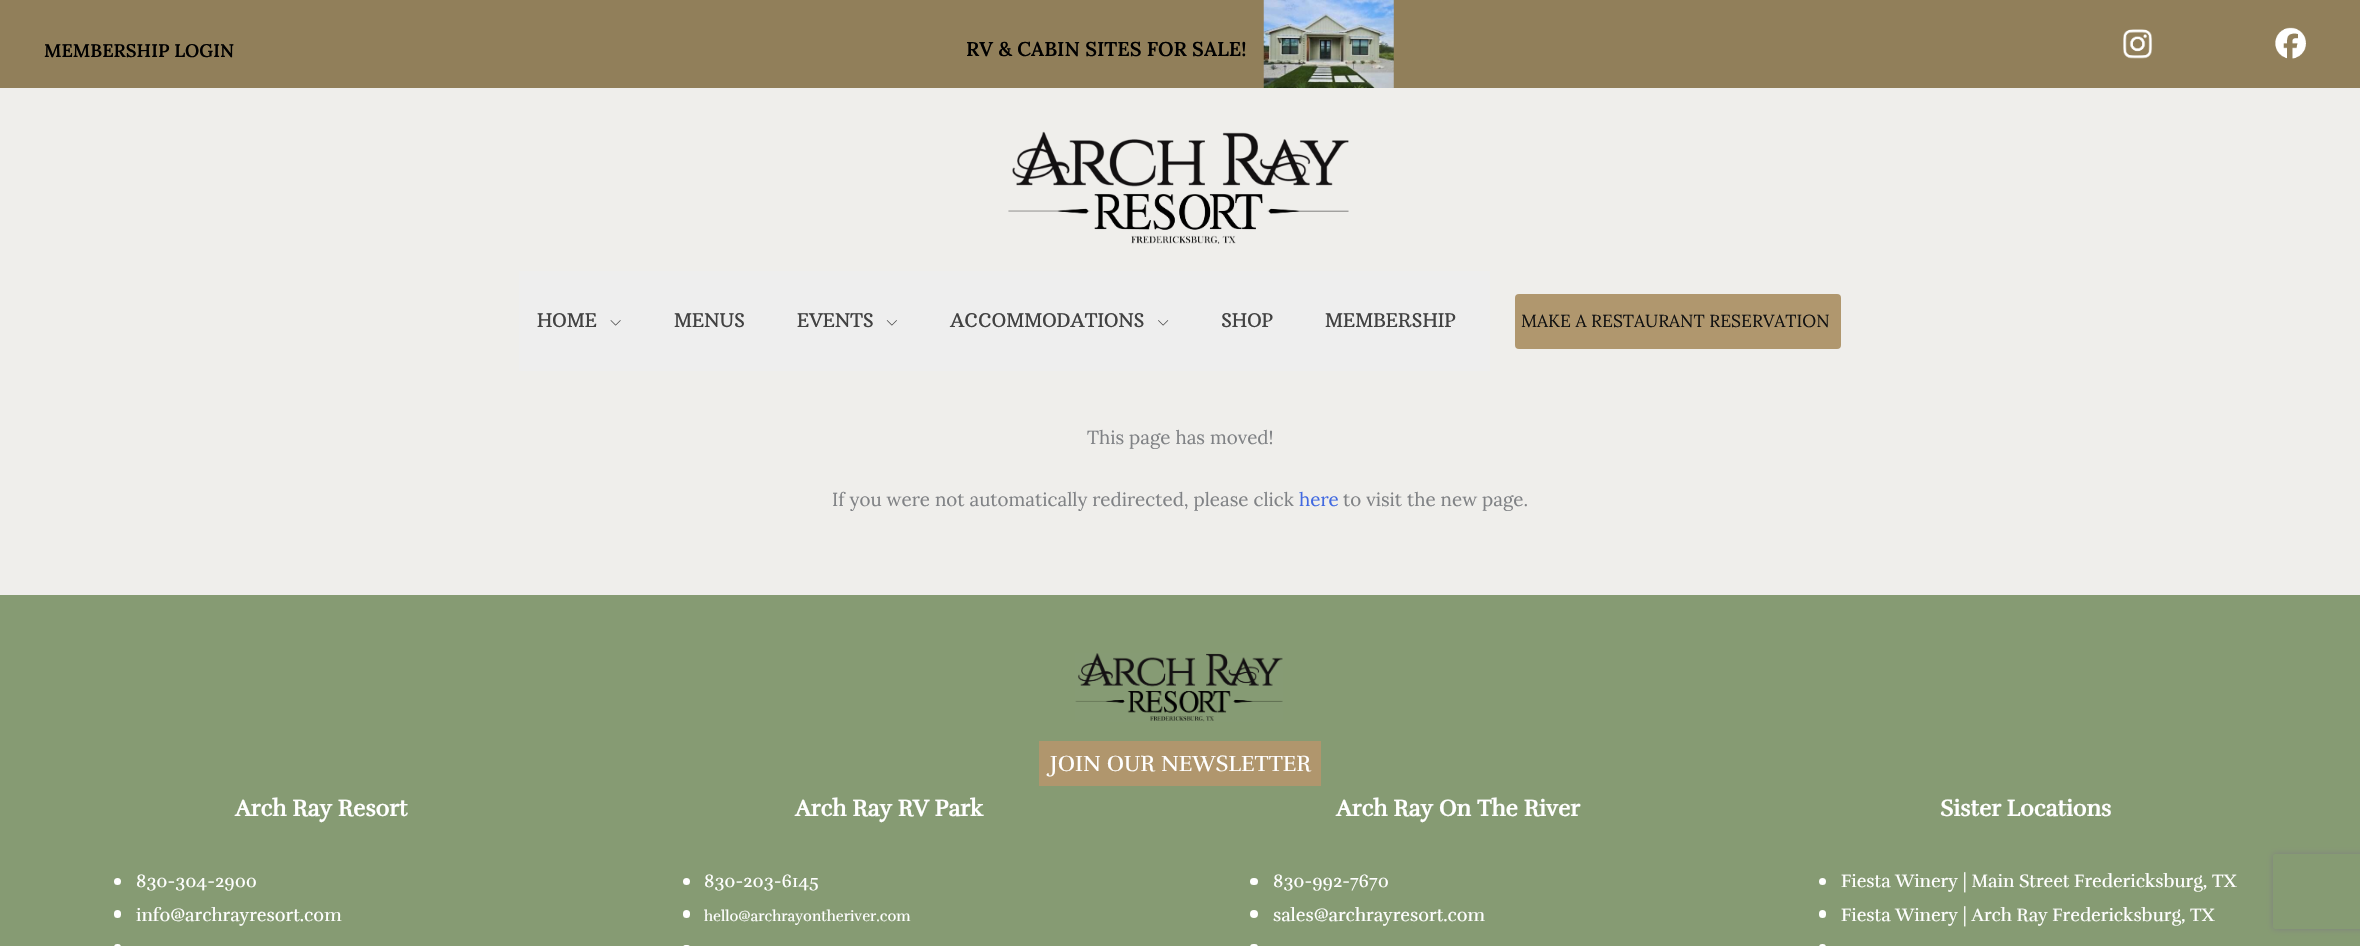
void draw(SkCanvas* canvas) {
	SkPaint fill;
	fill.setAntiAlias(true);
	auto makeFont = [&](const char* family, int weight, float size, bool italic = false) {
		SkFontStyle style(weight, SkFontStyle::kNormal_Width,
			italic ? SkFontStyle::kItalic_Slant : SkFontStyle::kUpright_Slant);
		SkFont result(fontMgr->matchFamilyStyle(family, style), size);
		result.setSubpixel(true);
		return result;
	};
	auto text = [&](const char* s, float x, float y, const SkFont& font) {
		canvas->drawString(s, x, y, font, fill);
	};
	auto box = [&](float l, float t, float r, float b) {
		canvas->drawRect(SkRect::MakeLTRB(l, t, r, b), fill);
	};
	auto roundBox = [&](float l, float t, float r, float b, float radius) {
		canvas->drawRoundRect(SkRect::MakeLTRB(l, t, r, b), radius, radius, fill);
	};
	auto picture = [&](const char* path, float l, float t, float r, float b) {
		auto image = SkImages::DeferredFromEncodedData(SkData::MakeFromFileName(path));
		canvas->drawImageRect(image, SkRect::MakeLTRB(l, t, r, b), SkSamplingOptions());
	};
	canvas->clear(0xFFEFEEEB);
	fill.setColor(0xFF917F5A);
	box(0, 0, 2360, 88);
	picture("image0.png", 1263, 0, 1394, 88);
	picture("image1.png", 2123, 29, 2153, 59);
	picture("image2.png", 2275, 27, 2306, 59);
	picture("image3.png", 1008, 131, 1349, 244);
	fill.setColor(0xFFEEEEEE);
	box(519, 271, 1490, 371);
	picture("image4.png", 610, 320, 621, 326);
	picture("image5.png", 886, 320, 897, 326);
	picture("image6.png", 1158, 320, 1169, 326);
	fill.setColor(0xFFB0976E);
	roundBox(1515, 294, 1841, 349, 4);
	fill.setColor(0xFF869B73);
	box(0, 595, 2360, 946);
	picture("image7.png", 1075, 653, 1283, 722);
	fill.setColor(0xFFB0966D);
	box(1039, 741, 1321, 786);
	fill.setColor(0xFFFFFFFF);
	canvas->drawCircle(117.5f, 881.5f, 3.5f, fill);
	roundBox(114, 910, 121, 918, 3.5f);
	roundBox(114, 944, 121, 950, 3.5f);
	canvas->drawCircle(686.5f, 881.5f, 3.5f, fill);
	roundBox(683, 910, 690, 918, 3.5f);
	roundBox(683, 945, 690, 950, 3.5f);
	roundBox(1250, 878, 1258, 885, 3.5f);
	canvas->drawCircle(1254, 914, 4, fill);
	roundBox(1250, 944, 1258, 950, 3.5f);
	canvas->drawCircle(1822.5f, 881.5f, 3.5f, fill);
	roundBox(1819, 910, 1826, 918, 3.5f);
	roundBox(1819, 944, 1826, 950, 3.5f);
	canvas->save();
	canvas->clipPath(SkPathBuilder(SkPathFillType::kEvenOdd).moveTo(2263, 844).lineTo(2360, 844).lineTo(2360, 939).lineTo(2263, 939).close().moveTo(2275.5f, 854).lineTo(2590.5f, 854).cubicTo(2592, 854, 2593, 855, 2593, 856.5f).lineTo(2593, 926.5f).cubicTo(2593, 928, 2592, 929, 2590.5f, 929).lineTo(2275.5f, 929).cubicTo(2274, 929, 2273, 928, 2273, 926.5f).lineTo(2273, 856.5f).cubicTo(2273, 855, 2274, 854, 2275.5f, 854).close().detach(), true);
	fill.setColor(0xFF808080);
	fill.setMaskFilter(SkMaskFilter::MakeBlur(kNormal_SkBlurStyle, 3));
	canvas->drawRoundRect(SkRect::MakeLTRB(2273, 854, 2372, 929), 2.5f, 2.5f, fill);
	fill.setMaskFilter(nullptr);
	canvas->restore();
	auto font1 = makeFont("Lora", 600, 18.3f);
	fill.setColor(0xFF000000);
	text("MEMBERSHIP LOGIN", 44, 57, font1);
	auto font2 = makeFont("Lora", 600, 20);
	text("RV & CABIN SITES FOR SALE!", 966, 56, font2);
	auto font3 = makeFont("Arbutus Slab", 400, 18.75f);
	fill.setColor(0xFF424242);
	text("HOME", 537, 327, font3);
	text("MENUS", 674, 327, font3);
	text("EVENTS", 797, 327, font3);
	text("ACCOMMODATIONS", 950, 327, font3);
	text("SHOP", 1221, 327, font3);
	text("MEMBERSHIP", 1325, 327, font3);
	auto font4 = makeFont("Lora", 400, 17.5f);
	fill.setColor(0xFF111111);
	text("MAKE A RESTAURANT RESERVATION", 1521, 327, font4);
	auto font5 = makeFont("Lora", 400, 18.75f);
	fill.setColor(0xFF808285);
	text("This page has moved!", 1087, 444, font5);
	text("If you were not automatically redirected, please click", 832, 506, font5);
	fill.setColor(0xFF4169E1);
	text("here", 1299, 506, font5);
	fill.setColor(0xFF808285);
	text("to visit the new page.", 1343, 506, font5);
	auto font6 = makeFont("Rufina", 400, 22.5f);
	fill.setColor(0xFFFFFFFF);
	text("JOIN OUR NEWSLETTER", 1050, 771, font6);
	auto font7 = makeFont("Rufina", 700, 23.25f);
	text("Arch Ray Resort", 235, 816, font7);
	auto font8 = makeFont("Rufina", 400, 18.3f);
	text("830-304-2900", 136, 887, font8);
	text("info@archrayresort.com", 136, 921, font8);
	text("Arch Ray RV Park", 795, 816, font7);
	text("830-203-6145", 704, 887, font8);
	auto font9 = makeFont("Rufina", 400, 15);
	text("hello@archrayontheriver.com", 704, 921, font9);
	text("Arch Ray On The River", 1336, 816, font7);
	text("830-992-7670", 1273, 887, font8);
	text("sales@archrayresort.com", 1273, 921, font8);
	text("Sister Locations", 1940, 816, font7);
	text("Fiesta Winery | Main Street Fredericksburg, TX", 1841, 887, font8);
	text("Fiesta Winery | Arch Ray Fredericksburg, TX", 1841, 921, font8);
}
